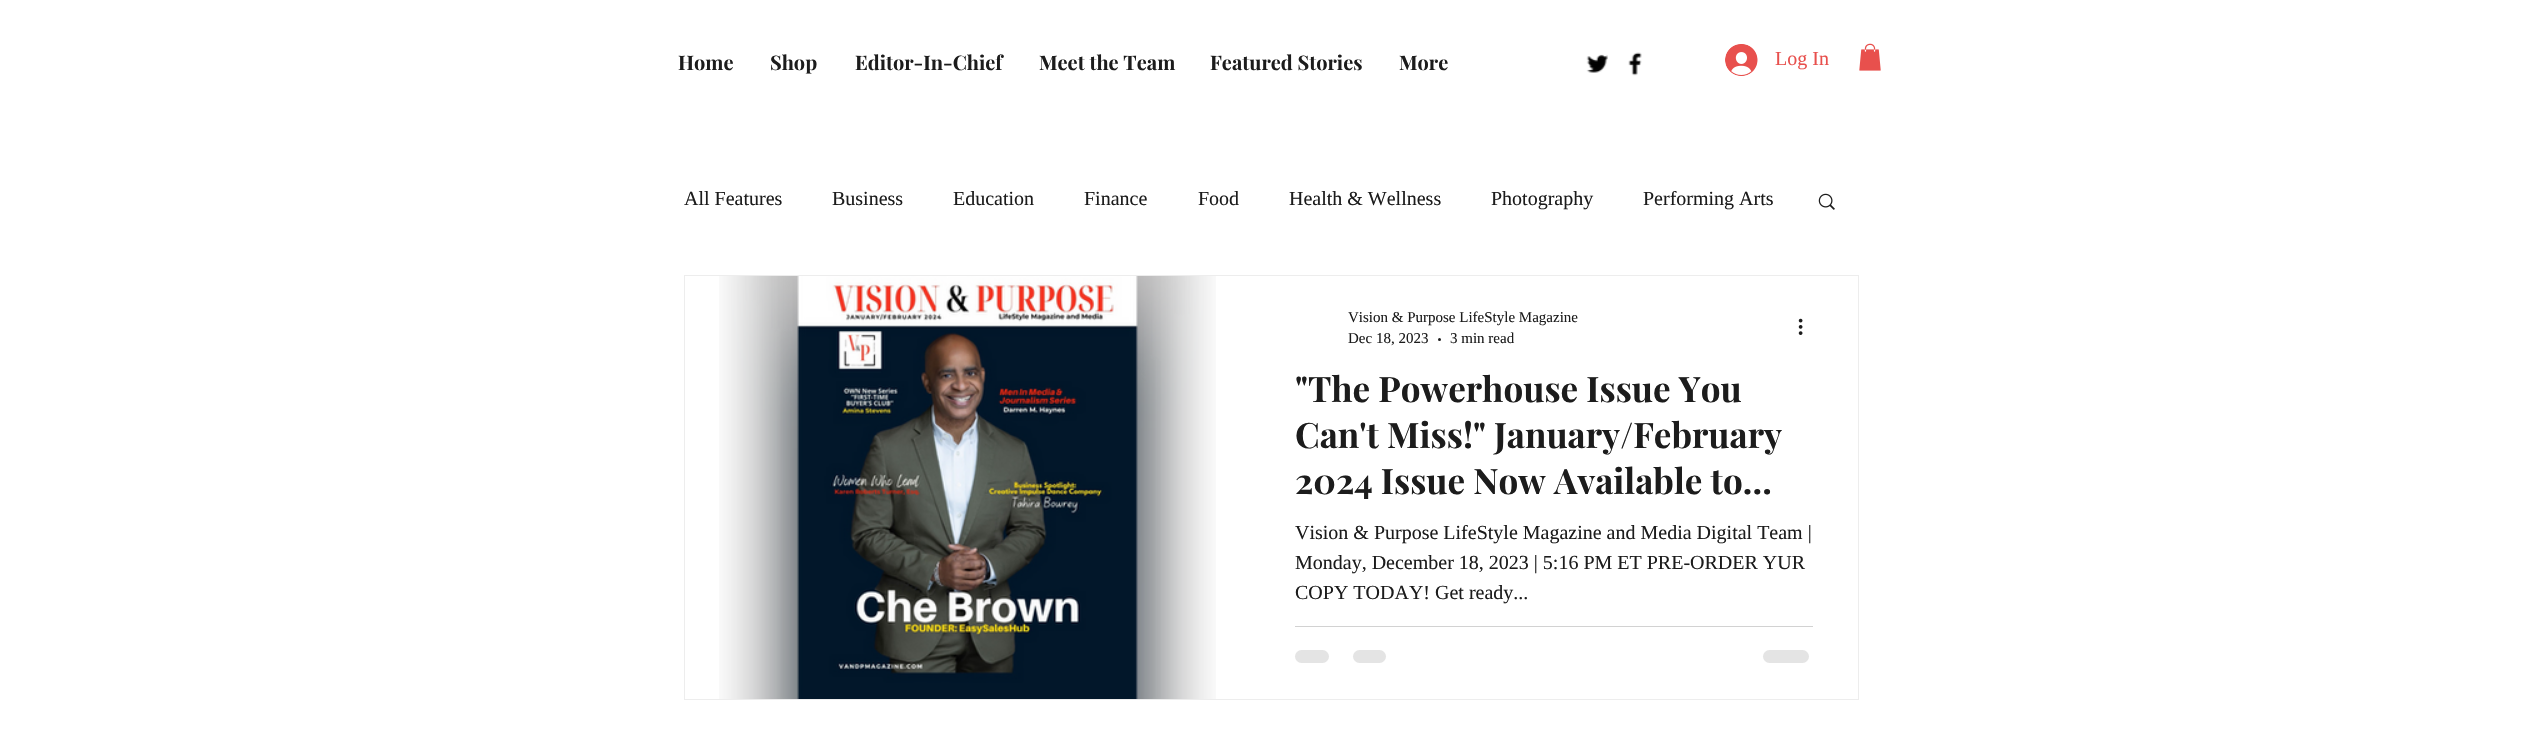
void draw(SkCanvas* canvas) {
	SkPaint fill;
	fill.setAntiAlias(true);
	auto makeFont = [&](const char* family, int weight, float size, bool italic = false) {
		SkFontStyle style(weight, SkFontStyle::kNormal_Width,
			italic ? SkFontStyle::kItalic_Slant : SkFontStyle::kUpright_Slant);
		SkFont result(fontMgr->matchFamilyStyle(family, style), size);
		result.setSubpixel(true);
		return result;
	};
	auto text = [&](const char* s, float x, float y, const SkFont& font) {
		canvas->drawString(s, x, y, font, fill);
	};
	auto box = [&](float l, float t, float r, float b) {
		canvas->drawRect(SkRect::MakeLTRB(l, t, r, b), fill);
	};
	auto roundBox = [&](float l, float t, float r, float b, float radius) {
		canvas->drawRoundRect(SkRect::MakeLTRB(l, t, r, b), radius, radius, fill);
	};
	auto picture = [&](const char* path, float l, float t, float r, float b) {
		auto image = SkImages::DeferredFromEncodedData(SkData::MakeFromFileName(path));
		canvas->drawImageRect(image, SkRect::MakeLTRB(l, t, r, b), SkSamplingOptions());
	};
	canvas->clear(0xFFFFFFFF);
	picture("image0.png", 1586, 54, 1608, 73);
	picture("image1.png", 1628, 52, 1642, 76);
	picture("image2.png", 1725, 44, 1758, 76);
	picture("image3.png", 1859, 43, 1881, 71);
	picture("image4.png", 1818, 193, 1835, 210);
	fill.setStyle(SkPaint::kStroke_Style);
	fill.setStrokeWidth(1);
	fill.setColor(0xFFEDEDED);
	canvas->drawRect(SkRect::MakeLTRB(684.5f, 275.5f, 1858.5f, 699.5f), fill);
	picture("image5.png", 719, 276, 1216, 699);
	picture("image6.png", 797, 276, 1138, 699);
	fill.setStyle(SkPaint::kFill_Style);
	fill.setColor(0xFF1C1C1C);
	canvas->drawCircle(1439.5f, 339.5f, 1.5f, fill);
	picture("image7.png", 1798, 318, 1803, 335);
	fill.setColor(0xFFD2D2D2);
	box(1295, 626, 1813, 627);
	fill.setColor(0xFFE4E4E4);
	roundBox(1295, 650, 1329, 663, 6.5f);
	roundBox(1353, 650, 1386, 663, 6.5f);
	roundBox(1763, 650, 1809, 663, 6.5f);
	auto font1 = makeFont("Playfair Display", 700, 20);
	fill.setColor(0xFF1C1C1C);
	text("Home", 678, 70, font1);
	text("Shop", 770, 70, font1);
	text("Editor-In-Chief", 855, 70, font1);
	text("Meet the Team", 1039, 70, font1);
	text("Featured Stories", 1210, 70, font1);
	text("More", 1399, 70, font1);
	auto font2 = makeFont("Liberation Serif", 400, 20);
	fill.setColor(0xFFE8504D);
	text("Log In", 1775, 65, font2);
	fill.setColor(0xFF1C1C1C);
	text("All Features", 684, 205, font2);
	text("Business", 832, 205, font2);
	text("Education", 953, 205, font2);
	text("Finance", 1084, 205, font2);
	text("Food", 1198, 205, font2);
	text("Health & Wellness", 1289, 205, font2);
	text("Photography", 1491, 205, font2);
	text("Performing Arts", 1643, 205, font2);
	auto font3 = makeFont("Liberation Serif", 400, 15);
	text("Vision & Purpose LifeStyle Magazine", 1348, 322, font3);
	text("Dec 18, 2023", 1348, 343, font3);
	text("3 min read", 1450, 343, font3);
	auto font4 = makeFont("Playfair Display", 700, 35);
	text("\"The Powerhouse Issue You", 1295, 402, font4);
	text("Can't Miss!\" January/February", 1295, 448, font4);
	text("2024 Issue Now Available to…", 1295, 494, font4);
	text("Vision & Purpose LifeStyle Magazine and Media Digital Team |", 1295, 539, font2);
	text("Monday, December 18, 2023 | 5:16 PM ET PRE-ORDER YUR", 1295, 569, font2);
	text("COPY TODAY! Get ready...", 1295, 599, font2);
}
